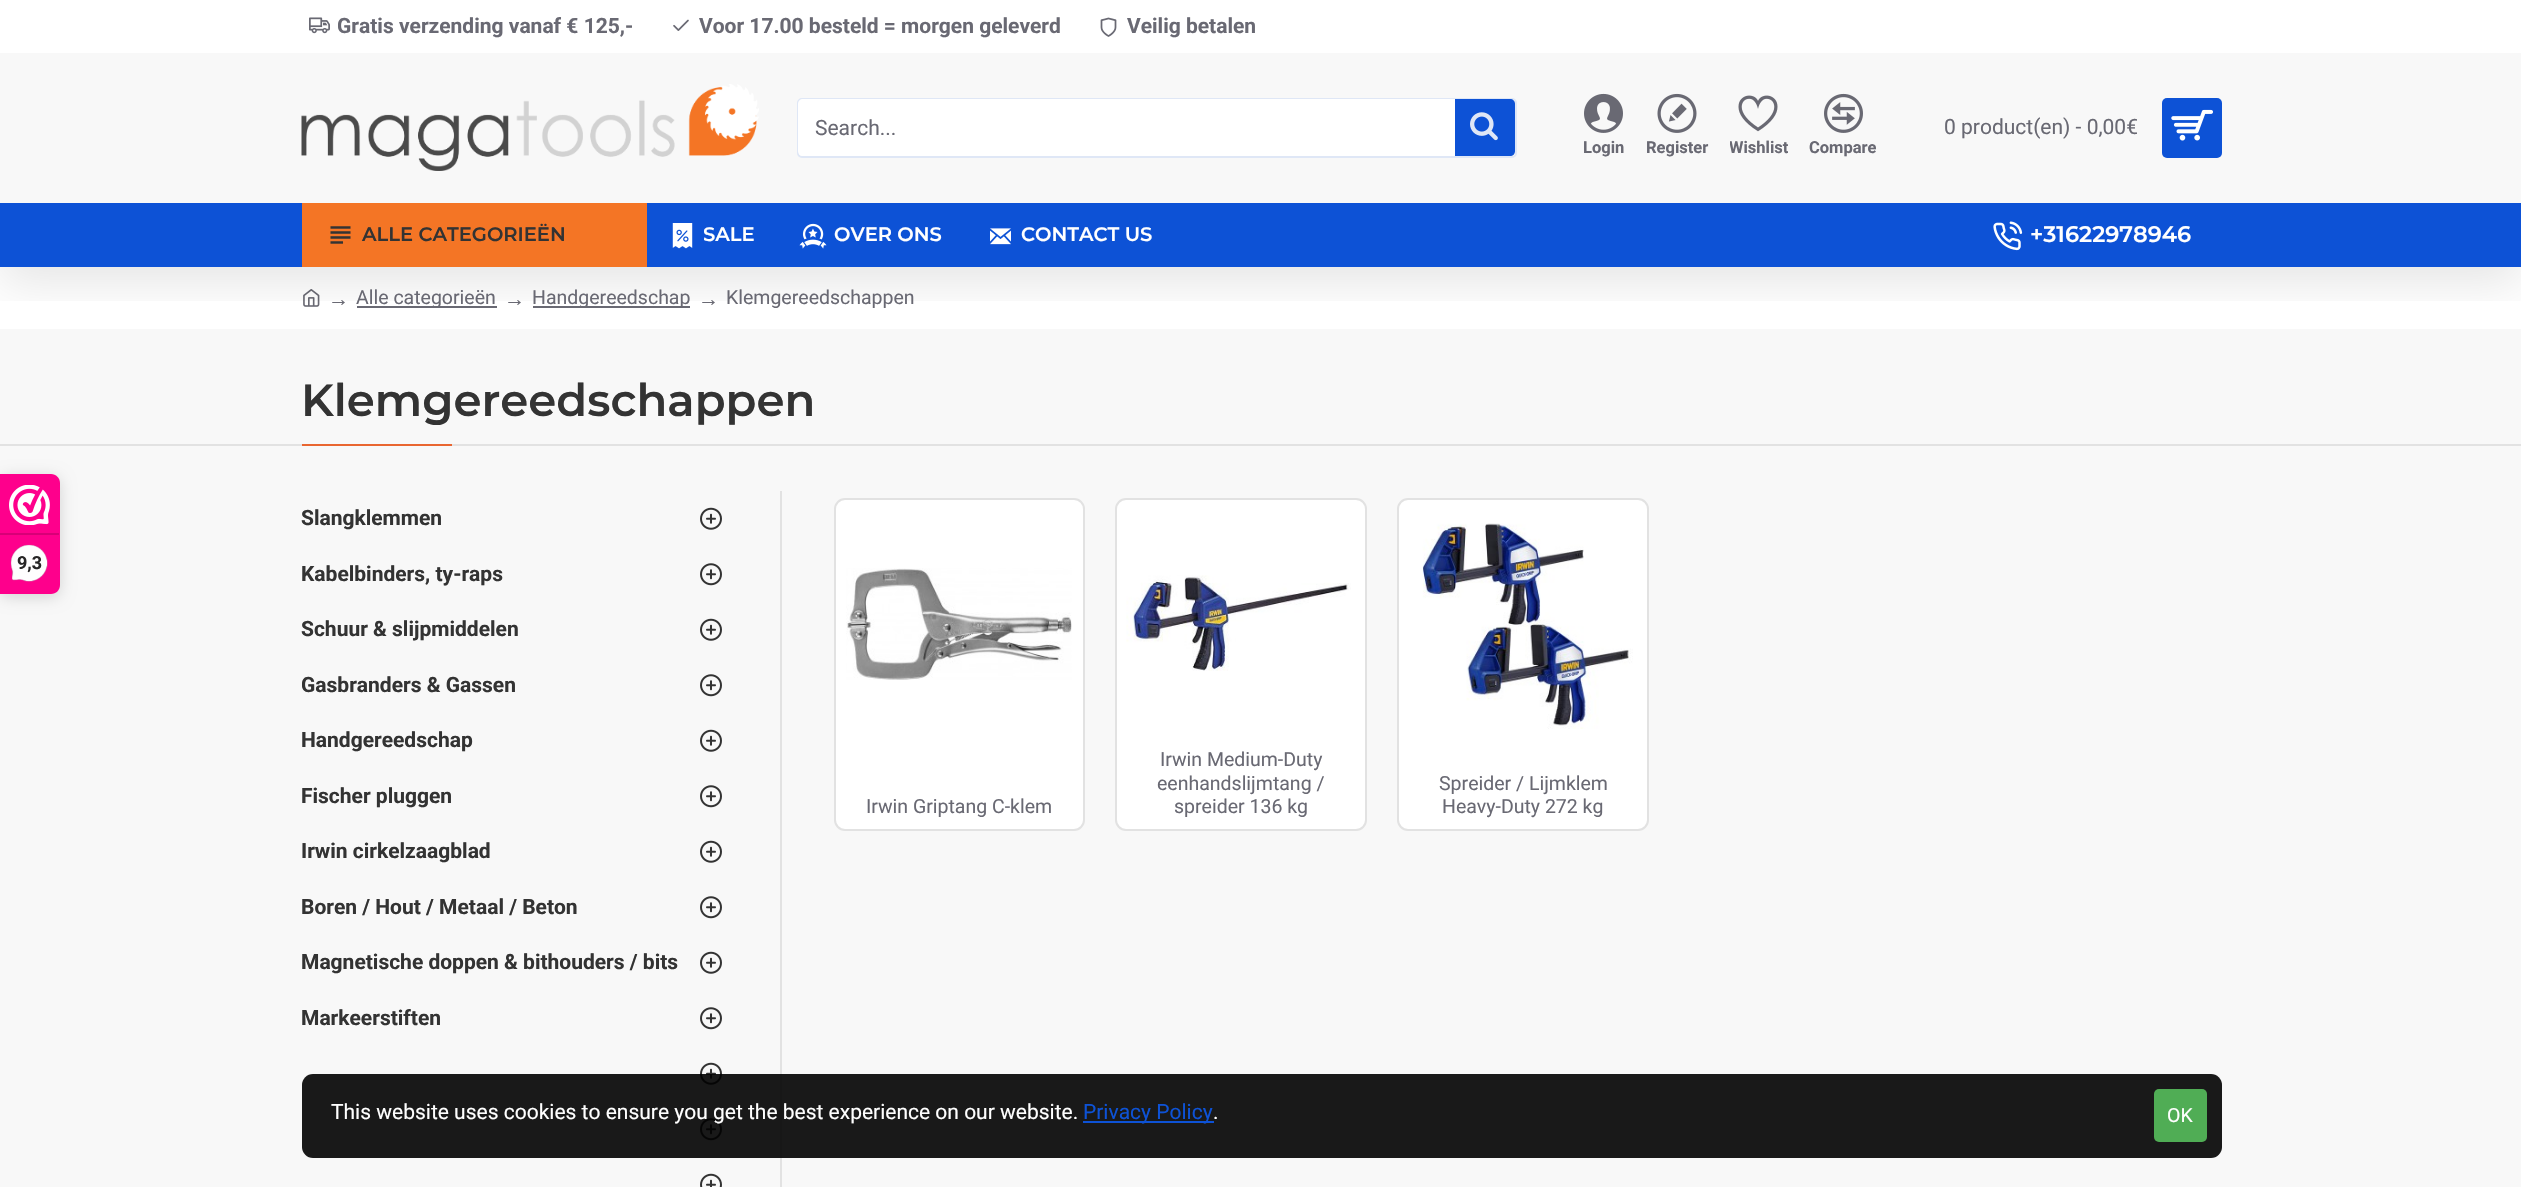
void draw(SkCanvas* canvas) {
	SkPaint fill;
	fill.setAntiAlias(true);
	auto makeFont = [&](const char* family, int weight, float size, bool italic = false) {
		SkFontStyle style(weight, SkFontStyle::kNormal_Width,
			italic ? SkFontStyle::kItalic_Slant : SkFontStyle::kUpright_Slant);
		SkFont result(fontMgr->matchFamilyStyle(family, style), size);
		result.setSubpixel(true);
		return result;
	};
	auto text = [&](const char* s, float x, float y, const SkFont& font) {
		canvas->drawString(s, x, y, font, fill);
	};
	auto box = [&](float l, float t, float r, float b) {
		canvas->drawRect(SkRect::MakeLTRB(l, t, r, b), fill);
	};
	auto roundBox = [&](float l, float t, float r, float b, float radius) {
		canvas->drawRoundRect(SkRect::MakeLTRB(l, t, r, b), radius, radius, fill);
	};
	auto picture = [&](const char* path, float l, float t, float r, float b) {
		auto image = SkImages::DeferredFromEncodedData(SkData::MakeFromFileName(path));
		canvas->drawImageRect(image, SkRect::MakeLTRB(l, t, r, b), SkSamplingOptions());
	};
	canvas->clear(0xFFF8F8F8);
	fill.setColor(0x26000000);
	fill.setMaskFilter(SkMaskFilter::MakeBlur(kNormal_SkBlurStyle, 7.5f));
	canvas->drawRoundRect(SkRect::MakeLTRB(0, 477, 60, 597), 9, 9, fill);
	fill.setMaskFilter(nullptr);
	fill.setColor(0xFFFE008C);
	canvas->drawPath(SkPathBuilder().moveTo(0, 474).lineTo(51, 474).cubicTo(56, 474, 60, 478, 60, 483).lineTo(60, 585).cubicTo(60, 590, 56, 594, 51, 594).lineTo(0, 594).close().detach(), fill);
	picture("image0.png", 9, 485, 50, 525);
	fill.setColor(0xFFD80077);
	box(0, 533, 59, 535);
	picture("image1.png", 10, 544, 48, 582);
	fill.setColor(0xFFFFFFFF);
	box(0, 267, 2521, 329);
	picture("image17.png", 303, 289, 320, 307);
	fill.setColor(0xFF696973);
	box(357, 306, 497, 308);
	box(533, 306, 690, 308);
	canvas->save();
	canvas->clipRect(SkRect::MakeLTRB(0, 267, 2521, 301));
	fill.setColor(0x1A000000);
	fill.setMaskFilter(SkMaskFilter::MakeBlur(kNormal_SkBlurStyle, 22.5f));
	canvas->drawRect(SkRect::MakeLTRB(0, 15, 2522, 282), fill);
	fill.setMaskFilter(nullptr);
	canvas->restore();
	fill.setColor(0xFFFFFFFF);
	box(0, 0, 2521, 53);
	picture("image2.png", 309, 17, 330, 34);
	picture("image3.png", 673, 19, 689, 31);
	picture("image4.png", 1100, 17, 1117, 37);
	picture("image5.png", 301, 84, 759, 171);
	fill.setStyle(SkPaint::kStroke_Style);
	fill.setStrokeWidth(2);
	fill.setColor(0xFFDFE7F6);
	canvas->drawRoundRect(SkRect::MakeLTRB(798, 99, 1516, 157), 4, 4, fill);
	fill.setStyle(SkPaint::kFill_Style);
	fill.setColor(0xFFFFFFFF);
	canvas->drawPath(SkPathBuilder().moveTo(803, 99).lineTo(1455, 99).lineTo(1455, 156).lineTo(803, 156).cubicTo(800, 156, 798, 154, 798, 151).lineTo(798, 104).cubicTo(798, 101, 800, 99, 803, 99).close().detach(), fill);
	fill.setColor(0xFF0D52D6);
	canvas->drawPath(SkPathBuilder().moveTo(1455, 99).lineTo(1510, 99).cubicTo(1513, 99, 1515, 101, 1515, 104).lineTo(1515, 151).cubicTo(1515, 154, 1513, 156, 1510, 156).lineTo(1455, 156).close().detach(), fill);
	picture("image6.png", 1470, 112, 1498, 141);
	roundBox(2162, 98, 2222, 158, 5);
	picture("image7.png", 2171, 109, 2213, 141);
	picture("image8.png", 1584, 93, 1623, 133);
	picture("image9.png", 1657, 93, 1697, 133);
	picture("image10.png", 1738, 95, 1778, 132);
	picture("image11.png", 1824, 93, 1863, 133);
	box(0, 203, 2521, 267);
	fill.setColor(0xFFF47525);
	box(302, 203, 647, 267);
	picture("image12.png", 330, 226, 351, 244);
	picture("image13.png", 672, 223, 693, 249);
	picture("image14.png", 799, 223, 827, 249);
	picture("image15.png", 990, 228, 1011, 245);
	picture("image16.png", 1993, 221, 2023, 251);
	fill.setColor(0xFFE2E2E2);
	box(0, 444, 2521, 446);
	fill.setColor(0xFFE96631);
	box(302, 444, 452, 446);
	fill.setColor(0xFFE2E2E2);
	box(780, 491, 782, 1187);
	picture("image18.png", 700, 507, 722, 530);
	picture("image19.png", 700, 563, 722, 586);
	picture("image18.png", 700, 618, 722, 641);
	picture("image19.png", 700, 674, 722, 697);
	picture("image18.png", 700, 729, 722, 752);
	picture("image19.png", 700, 785, 722, 808);
	picture("image18.png", 700, 840, 722, 863);
	picture("image19.png", 700, 896, 722, 919);
	picture("image18.png", 700, 951, 722, 974);
	picture("image19.png", 700, 1007, 722, 1030);
	picture("image18.png", 700, 1062, 722, 1085);
	picture("image19.png", 700, 1118, 722, 1141);
	picture("image20.png", 700, 1173, 722, 1187);
	fill.setColor(0xFFFFFFFF);
	canvas->drawRoundRect(SkRect::MakeLTRB(835, 499, 1084, 830), 10, 10, fill);
	fill.setStyle(SkPaint::kStroke_Style);
	fill.setColor(0xFFE2E2E2);
	canvas->drawRoundRect(SkRect::MakeLTRB(835, 499, 1084, 830), 10, 10, fill);
	picture("image21.png", 846, 568, 1072, 680);
	fill.setStyle(SkPaint::kFill_Style);
	fill.setColor(0xFFFFFFFF);
	canvas->drawRoundRect(SkRect::MakeLTRB(1116, 499, 1366, 830), 10, 10, fill);
	fill.setStyle(SkPaint::kStroke_Style);
	fill.setColor(0xFFE2E2E2);
	canvas->drawRoundRect(SkRect::MakeLTRB(1116, 499, 1366, 830), 10, 10, fill);
	picture("image22.png", 1126, 575, 1351, 671);
	fill.setStyle(SkPaint::kFill_Style);
	fill.setColor(0xFFFFFFFF);
	canvas->drawRoundRect(SkRect::MakeLTRB(1398, 499, 1648, 830), 10, 10, fill);
	fill.setStyle(SkPaint::kStroke_Style);
	fill.setColor(0xFFE2E2E2);
	canvas->drawRoundRect(SkRect::MakeLTRB(1398, 499, 1648, 830), 10, 10, fill);
	picture("image23.png", 1422, 523, 1633, 729);
	fill.setStyle(SkPaint::kFill_Style);
	fill.setColor(0xE6000000);
	roundBox(302, 1074, 2222, 1158, 11);
	fill.setColor(0xFF0D52D6);
	box(1083, 1121, 1214, 1123);
	fill.setColor(0xFF50AD55);
	roundBox(2154, 1089, 2207, 1142, 5);
	auto font1 = makeFont("Roboto", 700, 18);
	fill.setColor(0xFF272626);
	text("9,3", 17, 569, font1);
	canvas->save();
	canvas->clipRect(SkRect::MakeLTRB(338, 11, 633, 42));
	auto font2 = makeFont("Roboto", 700, 21);
	fill.setColor(0xFF696973);
	text("Gratis verzending vanaf € 125,-", 337, 33, font2);
	canvas->restore();
	text("Voor 17.00 besteld = morgen geleverd", 699, 33, font2);
	text("Veilig betalen", 1127, 33, font2);
	auto font3 = makeFont("Roboto", 400, 21);
	text("Search...", 815, 135, font3);
	text("0 product(en) - 0,00€", 1944, 134, font3);
	auto font4 = makeFont("Roboto", 700, 16.5f);
	text("Login", 1583, 153, font4);
	text("Register", 1646, 153, font4);
	canvas->save();
	canvas->clipRect(SkRect::MakeLTRB(1730, 137, 1788, 161));
	text("Wishlist", 1729, 153, font4);
	canvas->restore();
	text("Compare", 1809, 153, font4);
	auto font5 = makeFont("Montserrat", 600, 19.5f);
	fill.setColor(0xFF333333);
	text("ALLE CATEGORIEËN", 362, 241, font5);
	canvas->save();
	canvas->clipRect(SkRect::MakeLTRB(704, 221, 755, 249));
	fill.setColor(0xFFFFFFFF);
	text("SALE", 703, 241, font5);
	canvas->restore();
	text("OVER ONS", 834, 241, font5);
	text("CONTACT US", 1021, 241, font5);
	auto font6 = makeFont("Montserrat", 600, 22.5f);
	text("+31622978946", 2030, 242, font6);
	auto font7 = makeFont("Liberation Serif", 400, 21);
	fill.setColor(0xFF696973);
	text("→", 328, 306, font7);
	auto font8 = makeFont("Roboto", 400, 19.5f);
	text("Alle categorieën", 356, 304, font8);
	text("→", 504, 306, font7);
	text("Handgereedschap", 532, 304, font8);
	text("→", 698, 306, font7);
	text("Klemgereedschappen", 726, 304, font8);
	auto font9 = makeFont("Montserrat", 600, 45);
	fill.setColor(0xFF333333);
	text("Klemgereedschappen", 301, 416, font9);
	text("Slangklemmen", 301, 525, font2);
	text("Kabelbinders, ty-raps", 301, 581, font2);
	text("Schuur & slijpmiddelen", 301, 636, font2);
	canvas->save();
	canvas->clipRect(SkRect::MakeLTRB(302, 669, 516, 701));
	text("Gasbranders & Gassen", 301, 692, font2);
	canvas->restore();
	text("Handgereedschap", 301, 747, font2);
	text("Fischer pluggen", 301, 803, font2);
	text("Irwin cirkelzaagblad", 301, 858, font2);
	text("Boren / Hout / Metaal / Beton", 301, 914, font2);
	text("Magnetische doppen & bithouders / bits", 301, 969, font2);
	text("Markeerstiften", 301, 1025, font2);
	fill.setColor(0xFF696973);
	text("Irwin Griptang C-klem", 866, 813, font8);
	text("Irwin Medium-Duty", 1160, 766, font8);
	text("eenhandslijmtang /", 1157, 790, font8);
	text("spreider 136 kg", 1174, 813, font8);
	text("Spreider / Lijmklem", 1439, 790, font8);
	text("Heavy-Duty 272 kg", 1442, 813, font8);
	fill.setColor(0xFFFFFFFF);
	text("This website uses cookies to ensure you get the best experience on our website.", 331, 1119, font3);
	fill.setColor(0xFF0D52D6);
	text("Privacy Policy", 1083, 1119, font3);
	fill.setColor(0xFFFFFFFF);
	text(".", 1213, 1119, font3);
	text("OK", 2167, 1122, font8);
}
